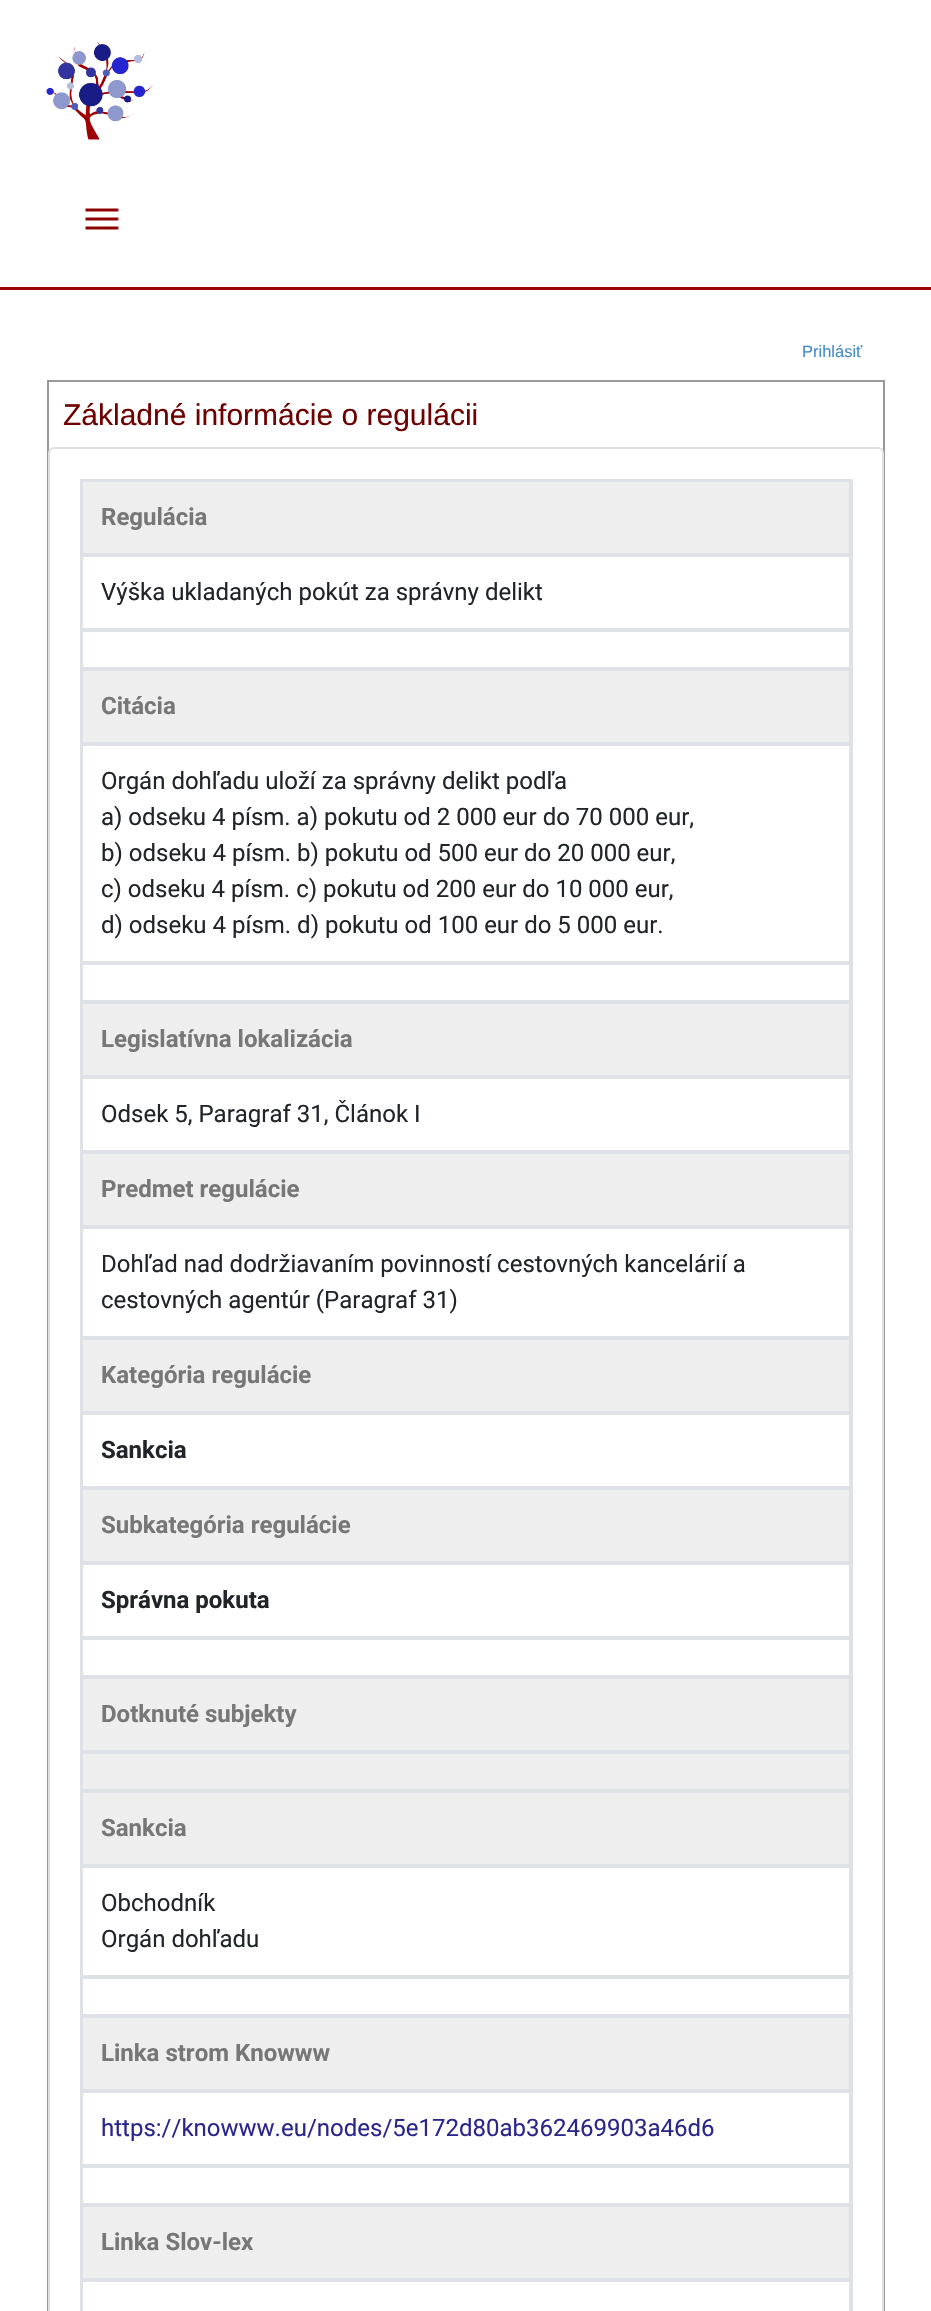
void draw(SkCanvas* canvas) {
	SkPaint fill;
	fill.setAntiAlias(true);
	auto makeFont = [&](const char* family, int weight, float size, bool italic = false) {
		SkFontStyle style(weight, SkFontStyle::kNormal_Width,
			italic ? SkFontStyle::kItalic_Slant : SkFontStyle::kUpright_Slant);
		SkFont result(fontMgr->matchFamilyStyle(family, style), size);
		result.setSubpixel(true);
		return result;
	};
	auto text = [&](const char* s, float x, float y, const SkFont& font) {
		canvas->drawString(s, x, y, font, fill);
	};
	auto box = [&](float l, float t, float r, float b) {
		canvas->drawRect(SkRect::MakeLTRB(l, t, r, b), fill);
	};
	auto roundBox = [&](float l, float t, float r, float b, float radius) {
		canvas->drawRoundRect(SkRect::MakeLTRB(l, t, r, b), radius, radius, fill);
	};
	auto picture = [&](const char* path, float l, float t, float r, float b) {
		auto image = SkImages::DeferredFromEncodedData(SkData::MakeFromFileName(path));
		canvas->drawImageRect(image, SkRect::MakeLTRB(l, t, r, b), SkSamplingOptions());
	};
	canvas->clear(0xFFFFFFFF);
	fill.setColor(0xFF9F0003);
	box(0, 287, 931, 290);
	picture("image0.png", 46, 42, 153, 140);
	picture("image1.png", 85, 208, 119, 230);
	fill.setStyle(SkPaint::kStroke_Style);
	fill.setStrokeWidth(2);
	fill.setColor(0xFF999999);
	canvas->drawRect(SkRect::MakeLTRB(48, 381, 884, 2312), fill);
	fill.setStyle(SkPaint::kFill_Style);
	fill.setColor(0xFFFFFFFF);
	roundBox(48, 447, 884, 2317, 6);
	fill.setStyle(SkPaint::kStroke_Style);
	fill.setColor(0x1F000000);
	canvas->drawRoundRect(SkRect::MakeLTRB(49, 448, 883, 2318), 5, 5, fill);
	fill.setStyle(SkPaint::kFill_Style);
	fill.setColor(0xFFEEEEEE);
	canvas->drawRect(SkRect::MakeLTRB(82, 481, 850, 554), fill);
	fill.setStyle(SkPaint::kStroke_Style);
	fill.setColor(0xFFDEE2E6);
	canvas->drawRect(SkRect::MakeLTRB(82, 481, 850, 554), fill);
	fill.setStyle(SkPaint::kFill_Style);
	box(80, 479, 852, 481);
	box(851, 479, 853, 2311);
	box(80, 479, 81, 2311);
	fill.setStyle(SkPaint::kStroke_Style);
	canvas->drawRect(SkRect::MakeLTRB(82, 556, 850, 629), fill);
	canvas->drawRect(SkRect::MakeLTRB(82, 631, 850, 668), fill);
	fill.setStyle(SkPaint::kFill_Style);
	fill.setColor(0xFFEEEEEE);
	canvas->drawRect(SkRect::MakeLTRB(82, 670, 850, 743), fill);
	fill.setStyle(SkPaint::kStroke_Style);
	fill.setColor(0xFFDEE2E6);
	canvas->drawRect(SkRect::MakeLTRB(82, 670, 850, 743), fill);
	canvas->drawRect(SkRect::MakeLTRB(82, 745, 850, 962), fill);
	canvas->drawRect(SkRect::MakeLTRB(82, 964, 850, 1001), fill);
	fill.setStyle(SkPaint::kFill_Style);
	fill.setColor(0xFFEEEEEE);
	canvas->drawRect(SkRect::MakeLTRB(82, 1003, 850, 1076), fill);
	fill.setStyle(SkPaint::kStroke_Style);
	fill.setColor(0xFFDEE2E6);
	canvas->drawRect(SkRect::MakeLTRB(82, 1003, 850, 1076), fill);
	canvas->drawRect(SkRect::MakeLTRB(82, 1078, 850, 1151), fill);
	fill.setStyle(SkPaint::kFill_Style);
	fill.setColor(0xFFEEEEEE);
	canvas->drawRect(SkRect::MakeLTRB(82, 1153, 850, 1226), fill);
	fill.setStyle(SkPaint::kStroke_Style);
	fill.setColor(0xFFDEE2E6);
	canvas->drawRect(SkRect::MakeLTRB(82, 1153, 850, 1226), fill);
	canvas->drawRect(SkRect::MakeLTRB(82, 1228, 850, 1337), fill);
	fill.setStyle(SkPaint::kFill_Style);
	fill.setColor(0xFFEEEEEE);
	canvas->drawRect(SkRect::MakeLTRB(82, 1339, 850, 1412), fill);
	fill.setStyle(SkPaint::kStroke_Style);
	fill.setColor(0xFFDEE2E6);
	canvas->drawRect(SkRect::MakeLTRB(82, 1339, 850, 1412), fill);
	canvas->drawRect(SkRect::MakeLTRB(82, 1414, 850, 1487), fill);
	fill.setStyle(SkPaint::kFill_Style);
	fill.setColor(0xFFEEEEEE);
	canvas->drawRect(SkRect::MakeLTRB(82, 1489, 850, 1562), fill);
	fill.setStyle(SkPaint::kStroke_Style);
	fill.setColor(0xFFDEE2E6);
	canvas->drawRect(SkRect::MakeLTRB(82, 1489, 850, 1562), fill);
	canvas->drawRect(SkRect::MakeLTRB(82, 1564, 850, 1637), fill);
	canvas->drawRect(SkRect::MakeLTRB(82, 1639, 850, 1676), fill);
	fill.setStyle(SkPaint::kFill_Style);
	fill.setColor(0xFFEEEEEE);
	canvas->drawRect(SkRect::MakeLTRB(82, 1678, 850, 1751), fill);
	fill.setStyle(SkPaint::kStroke_Style);
	fill.setColor(0xFFDEE2E6);
	canvas->drawRect(SkRect::MakeLTRB(82, 1678, 850, 1751), fill);
	fill.setStyle(SkPaint::kFill_Style);
	fill.setColor(0xFFEEEEEE);
	canvas->drawRect(SkRect::MakeLTRB(82, 1753, 850, 1790), fill);
	fill.setStyle(SkPaint::kStroke_Style);
	fill.setColor(0xFFDEE2E6);
	canvas->drawRect(SkRect::MakeLTRB(82, 1753, 850, 1790), fill);
	fill.setStyle(SkPaint::kFill_Style);
	fill.setColor(0xFFEEEEEE);
	canvas->drawRect(SkRect::MakeLTRB(82, 1792, 850, 1865), fill);
	fill.setStyle(SkPaint::kStroke_Style);
	fill.setColor(0xFFDEE2E6);
	canvas->drawRect(SkRect::MakeLTRB(82, 1792, 850, 1865), fill);
	canvas->drawRect(SkRect::MakeLTRB(82, 1867, 850, 1976), fill);
	canvas->drawRect(SkRect::MakeLTRB(82, 1978, 850, 2015), fill);
	fill.setStyle(SkPaint::kFill_Style);
	fill.setColor(0xFFEEEEEE);
	canvas->drawRect(SkRect::MakeLTRB(82, 2017, 850, 2090), fill);
	fill.setStyle(SkPaint::kStroke_Style);
	fill.setColor(0xFFDEE2E6);
	canvas->drawRect(SkRect::MakeLTRB(82, 2017, 850, 2090), fill);
	canvas->drawRect(SkRect::MakeLTRB(82, 2092, 850, 2165), fill);
	canvas->drawRect(SkRect::MakeLTRB(82, 2167, 850, 2204), fill);
	fill.setStyle(SkPaint::kFill_Style);
	fill.setColor(0xFFEEEEEE);
	canvas->drawRect(SkRect::MakeLTRB(82, 2206, 850, 2279), fill);
	fill.setStyle(SkPaint::kStroke_Style);
	fill.setColor(0xFFDEE2E6);
	canvas->drawRect(SkRect::MakeLTRB(82, 2206, 850, 2279), fill);
	canvas->drawRect(SkRect::MakeLTRB(82, 2281, 850, 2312), fill);
	auto font1 = makeFont("Liberation Sans", 400, 16.5f);
	fill.setStyle(SkPaint::kFill_Style);
	fill.setColor(0xFF428BCA);
	text("Prihlásiť", 802, 357, font1);
	auto font2 = makeFont("Liberation Sans", 400, 30);
	fill.setColor(0xFF6E0000);
	text("Základné informácie o regulácii", 63, 425, font2);
	auto font3 = makeFont("Roboto", 700, 24);
	fill.setColor(0xFF777777);
	text("Regulácia", 101, 525, font3);
	auto font4 = makeFont("Roboto", 400, 24);
	fill.setColor(0xFF212529);
	text("Výška ukladaných pokút za správny delikt", 101, 600, font4);
	fill.setColor(0xFF777777);
	text("Citácia", 101, 714, font3);
	fill.setColor(0xFF212529);
	text("Orgán dohľadu uloží za správny delikt podľa", 101, 789, font4);
	text("a) odseku 4 písm. a) pokutu od 2 000 eur do 70 000 eur,", 101, 825, font4);
	text("b) odseku 4 písm. b) pokutu od 500 eur do 20 000 eur,", 101, 861, font4);
	text("c) odseku 4 písm. c) pokutu od 200 eur do 10 000 eur,", 101, 897, font4);
	text("d) odseku 4 písm. d) pokutu od 100 eur do 5 000 eur.", 101, 933, font4);
	fill.setColor(0xFF777777);
	text("Legislatívna lokalizácia", 101, 1047, font3);
	fill.setColor(0xFF212529);
	text("Odsek 5, Paragraf 31, Článok I", 101, 1122, font4);
	fill.setColor(0xFF777777);
	text("Predmet regulácie", 101, 1197, font3);
	fill.setColor(0xFF212529);
	text("Dohľad nad dodržiavaním povinností cestovných kancelárií a", 101, 1272, font4);
	text("cestovných agentúr (Paragraf 31)", 101, 1308, font4);
	fill.setColor(0xFF777777);
	text("Kategória regulácie", 101, 1383, font3);
	fill.setColor(0xFF212529);
	text("Sankcia", 101, 1458, font3);
	fill.setColor(0xFF777777);
	text("Subkategória regulácie", 101, 1533, font3);
	fill.setColor(0xFF212529);
	text("Správna pokuta", 101, 1608, font3);
	fill.setColor(0xFF777777);
	text("Dotknuté subjekty", 101, 1722, font3);
	text("Sankcia", 101, 1836, font3);
	fill.setColor(0xFF212529);
	text("Obchodník", 101, 1911, font4);
	text("Orgán dohľadu", 101, 1947, font4);
	fill.setColor(0xFF777777);
	text("Linka strom Knowww", 101, 2061, font3);
	fill.setColor(0xFF2B268C);
	text("https://knowww.eu/nodes/5e172d80ab362469903a46d6", 101, 2136, font4);
	fill.setColor(0xFF777777);
	text("Linka Slov-lex", 101, 2250, font3);
}
